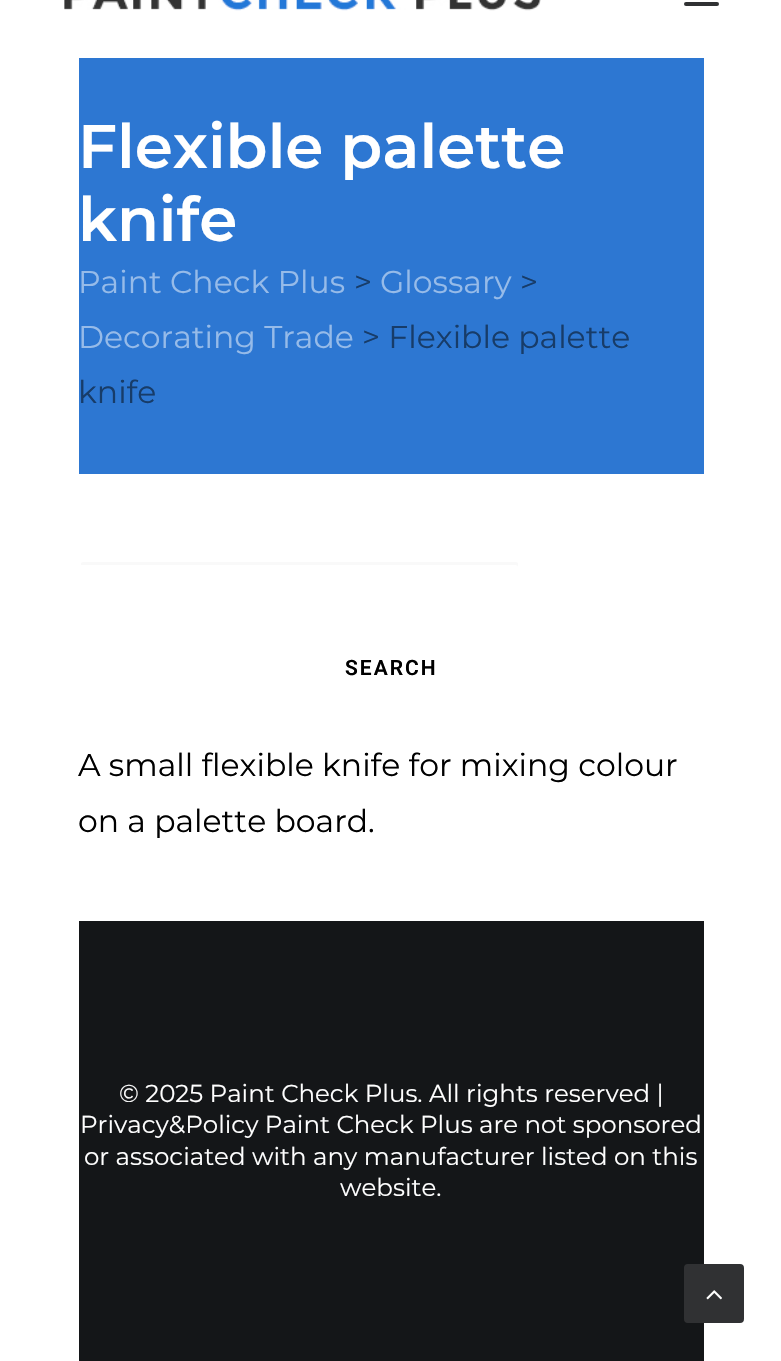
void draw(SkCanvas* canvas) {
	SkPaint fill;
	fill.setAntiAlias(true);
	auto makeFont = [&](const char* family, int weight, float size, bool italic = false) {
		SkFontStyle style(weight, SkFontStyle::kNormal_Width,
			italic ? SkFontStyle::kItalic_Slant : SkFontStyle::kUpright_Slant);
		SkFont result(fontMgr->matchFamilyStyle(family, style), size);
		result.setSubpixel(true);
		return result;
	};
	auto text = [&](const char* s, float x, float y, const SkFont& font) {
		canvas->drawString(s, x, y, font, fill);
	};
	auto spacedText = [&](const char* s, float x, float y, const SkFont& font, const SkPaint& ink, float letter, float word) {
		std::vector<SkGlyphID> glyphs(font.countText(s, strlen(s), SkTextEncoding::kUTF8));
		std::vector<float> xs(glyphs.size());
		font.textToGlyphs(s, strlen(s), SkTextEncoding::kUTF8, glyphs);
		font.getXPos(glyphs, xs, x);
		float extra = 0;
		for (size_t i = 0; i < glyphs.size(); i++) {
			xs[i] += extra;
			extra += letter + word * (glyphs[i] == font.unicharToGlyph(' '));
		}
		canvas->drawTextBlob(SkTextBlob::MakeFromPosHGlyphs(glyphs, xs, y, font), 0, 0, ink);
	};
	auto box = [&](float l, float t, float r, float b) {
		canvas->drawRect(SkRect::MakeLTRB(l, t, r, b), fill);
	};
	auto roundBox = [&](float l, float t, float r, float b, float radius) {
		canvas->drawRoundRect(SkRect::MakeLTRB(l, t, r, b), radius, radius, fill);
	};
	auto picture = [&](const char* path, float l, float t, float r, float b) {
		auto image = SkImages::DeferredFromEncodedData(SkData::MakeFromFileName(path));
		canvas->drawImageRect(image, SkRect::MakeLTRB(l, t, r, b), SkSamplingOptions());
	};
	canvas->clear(0xFFFFFFFF);
	picture("image0.png", 64, 0, 541, 11);
	fill.setColor(0xFF303133);
	roundBox(684, 2, 719, 6, 2);
	fill.setColor(0xFF2D77D2);
	box(79, 58, 704, 474);
	fill.setColor(0xFFF9F9F9);
	canvas->drawPath(SkPathBuilder().moveTo(82, 565).lineTo(516, 565).cubicTo(517, 565, 518, 566, 518, 567).lineTo(518, 564).cubicTo(518, 563, 517, 562, 516, 562).lineTo(83, 562).cubicTo(82, 562, 81, 563, 81, 564).lineTo(81, 565).close().detach(), fill);
	fill.setColor(0xFF141618);
	box(79, 921, 704, 1361);
	fill.setColor(0xFF303133);
	canvas->drawRoundRect(SkRect::MakeLTRB(685, 1265, 743, 1322), 3, 3, fill);
	fill.setStyle(SkPaint::kStroke_Style);
	fill.setStrokeWidth(2);
	canvas->drawRoundRect(SkRect::MakeLTRB(685, 1265, 743, 1322), 3, 3, fill);
	picture("image1.png", 706, 1290, 722, 1300);
	auto font1 = makeFont("Montserrat", 600, 61.25f);
	fill.setStyle(SkPaint::kFill_Style);
	fill.setColor(0xFFFFFFFF);
	text("Flexible palette", 78, 168, font1);
	text("knife", 78, 241, font1);
	auto font2 = makeFont("Montserrat", 400, 31.5f);
	fill.setColor(0xFF96BBE9);
	text("Paint Check Plus", 78, 293, font2);
	fill.setColor(0xFF173C69);
	text(">", 354, 293, font2);
	fill.setColor(0xFF96BBE9);
	text("Glossary", 380, 293, font2);
	fill.setColor(0xFF173C69);
	text(">", 520, 293, font2);
	fill.setColor(0xFF96BBE9);
	text("Decorating Trade", 78, 348, font2);
	fill.setColor(0xFF173C69);
	text("> Flexible palette", 362, 348, font2);
	text("knife", 78, 403, font2);
	auto font3 = makeFont("Roboto", 600, 21);
	fill.setColor(0xFF000000);
	spacedText("SEARCH", 345, 675, font3, fill, 2, 0);
	text("A small flexible knife for mixing colour", 78, 776, font2);
	text("on a palette board.", 78, 832, font2);
	auto font4 = makeFont("Montserrat", 400, 24.5f);
	fill.setColor(0xFFFFFFFF);
	text("© 2025 Paint Check Plus. All rights reserved |", 119, 1102, font4);
	text("Privacy&Policy Paint Check Plus are not sponsored", 80, 1133, font4);
	text("or associated with any manufacturer listed on this", 84, 1165, font4);
	text("website.", 340, 1196, font4);
}
